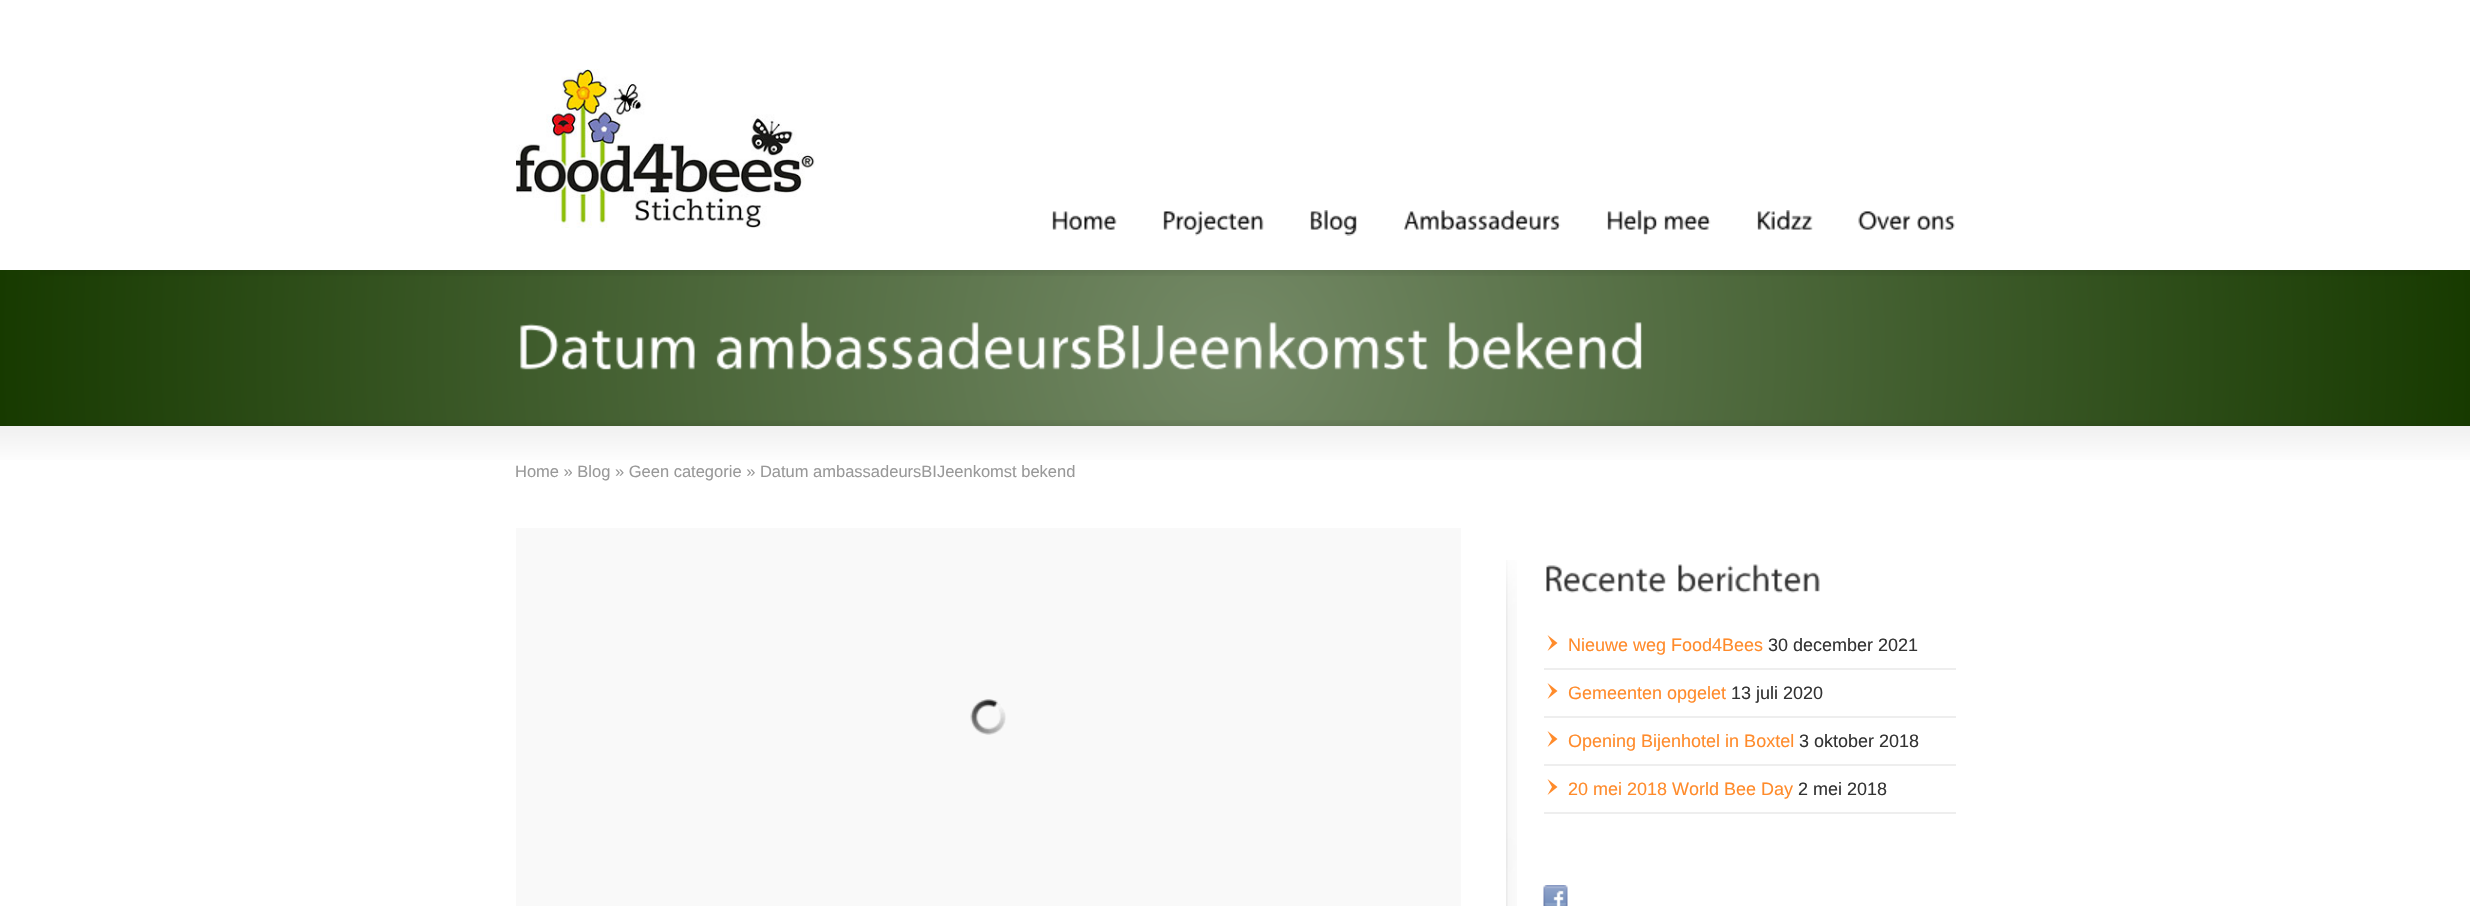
void draw(SkCanvas* canvas) {
	SkPaint fill;
	fill.setAntiAlias(true);
	auto makeFont = [&](const char* family, int weight, float size, bool italic = false) {
		SkFontStyle style(weight, SkFontStyle::kNormal_Width,
			italic ? SkFontStyle::kItalic_Slant : SkFontStyle::kUpright_Slant);
		SkFont result(fontMgr->matchFamilyStyle(family, style), size);
		result.setSubpixel(true);
		return result;
	};
	auto text = [&](const char* s, float x, float y, const SkFont& font) {
		canvas->drawString(s, x, y, font, fill);
	};
	auto box = [&](float l, float t, float r, float b) {
		canvas->drawRect(SkRect::MakeLTRB(l, t, r, b), fill);
	};
	auto picture = [&](const char* path, float l, float t, float r, float b) {
		auto image = SkImages::DeferredFromEncodedData(SkData::MakeFromFileName(path));
		canvas->drawImageRect(image, SkRect::MakeLTRB(l, t, r, b), SkSamplingOptions());
	};
	canvas->clear(0xFFFFFFFF);
	picture("image0.png", 516, 69, 815, 228);
	picture("image1.png", 1052, 211, 1117, 230);
	picture("image2.png", 1163, 211, 1264, 236);
	picture("image3.png", 1310, 210, 1357, 236);
	picture("image4.png", 1404, 210, 1561, 230);
	picture("image5.png", 1607, 210, 1658, 235);
	picture("image6.png", 1664, 215, 1711, 230);
	picture("image7.png", 1757, 210, 1813, 230);
	picture("image8.png", 1858, 211, 1911, 230);
	picture("image9.png", 1917, 215, 1955, 230);
	{
		const SkColor colors[] = {0xFF748966, 0xFF173A00};
		const float stops[] = {0, 1};
		fill.setShader(SkGradientShader::MakeRadial({1235, 348}, 1238, colors, stops, 2, SkTileMode::kClamp));
		fill.setAlpha(255);
	}
	box(0, 270, 2470, 426);
	picture("image10.png", 40, 270, 2430, 276);
	picture("image11.png", 520, 323, 695, 370);
	picture("image12.png", 716, 322, 1429, 370);
	picture("image13.png", 1448, 322, 1642, 370);
	picture("image14.png", 40, 420, 2430, 426);
	{
		const SkColor colors[] = {0xFFF0F0F0, 0xFFFFFFFF};
		const float stops[] = {0, 1};
		const SkPoint ends[] = {{1235, 426}, {1235, 467}};
		fill.setShader(SkGradientShader::MakeLinear(ends, colors, stops, 2, SkTileMode::kClamp));
		fill.setAlpha(255);
	}
	box(0, 426, 2470, 460);
	fill.setShader(nullptr);
	fill.setColor(0xFFF9F9F9);
	box(516, 528, 1461, 906);
	picture("image15.png", 970, 699, 1006, 735);
	picture("image16.png", 1506, 560, 1517, 906);
	picture("image17.png", 1546, 565, 1666, 593);
	picture("image18.png", 1678, 564, 1820, 593);
	fill.setColor(0xFFEEEEEE);
	box(1544, 668, 1956, 670);
	fill.setColor(0xFFFF8B2B);
	canvas->drawPath(SkPathBuilder().moveTo(1557.5f, 643).lineTo(1547.5f, 651).lineTo(1552, 643).lineTo(1547.5f, 635).close().detach(), fill);
	fill.setColor(0xFFEEEEEE);
	box(1544, 716, 1956, 718);
	fill.setColor(0xFFFF8B2B);
	canvas->drawPath(SkPathBuilder().moveTo(1557.5f, 691).lineTo(1547.5f, 699).lineTo(1552, 691).lineTo(1547.5f, 683).close().detach(), fill);
	fill.setColor(0xFFEEEEEE);
	box(1544, 764, 1956, 766);
	fill.setColor(0xFFFF8B2B);
	canvas->drawPath(SkPathBuilder().moveTo(1557.5f, 739).lineTo(1547.5f, 747).lineTo(1552, 739).lineTo(1547.5f, 731).close().detach(), fill);
	fill.setColor(0xFFEEEEEE);
	box(1544, 812, 1956, 814);
	fill.setColor(0xFFFF8B2B);
	canvas->drawPath(SkPathBuilder().moveTo(1557.5f, 787).lineTo(1547.5f, 795).lineTo(1552, 787).lineTo(1547.5f, 779).close().detach(), fill);
	picture("image19.png", 1543, 885, 1568, 906);
	auto font1 = makeFont("Liberation Sans", 400, 16.5f);
	fill.setColor(0xFF999999);
	text("Home » Blog » Geen categorie » Datum ambassadeursBIJeenkomst bekend", 515, 477, font1);
	auto font2 = makeFont("Liberation Sans", 400, 18);
	fill.setColor(0xFFFF8B2B);
	text("Nieuwe weg Food4Bees", 1568, 651, font2);
	fill.setColor(0xFF333333);
	text("30 december 2021", 1768, 651, font2);
	fill.setColor(0xFFFF8B2B);
	text("Gemeenten opgelet", 1568, 699, font2);
	fill.setColor(0xFF333333);
	text("13 juli 2020", 1731, 699, font2);
	fill.setColor(0xFFFF8B2B);
	text("Opening Bijenhotel in Boxtel", 1568, 747, font2);
	fill.setColor(0xFF333333);
	text("3 oktober 2018", 1799, 747, font2);
	fill.setColor(0xFFFF8B2B);
	text("20 mei 2018 World Bee Day", 1568, 795, font2);
	fill.setColor(0xFF333333);
	text("2 mei 2018", 1798, 795, font2);
}
